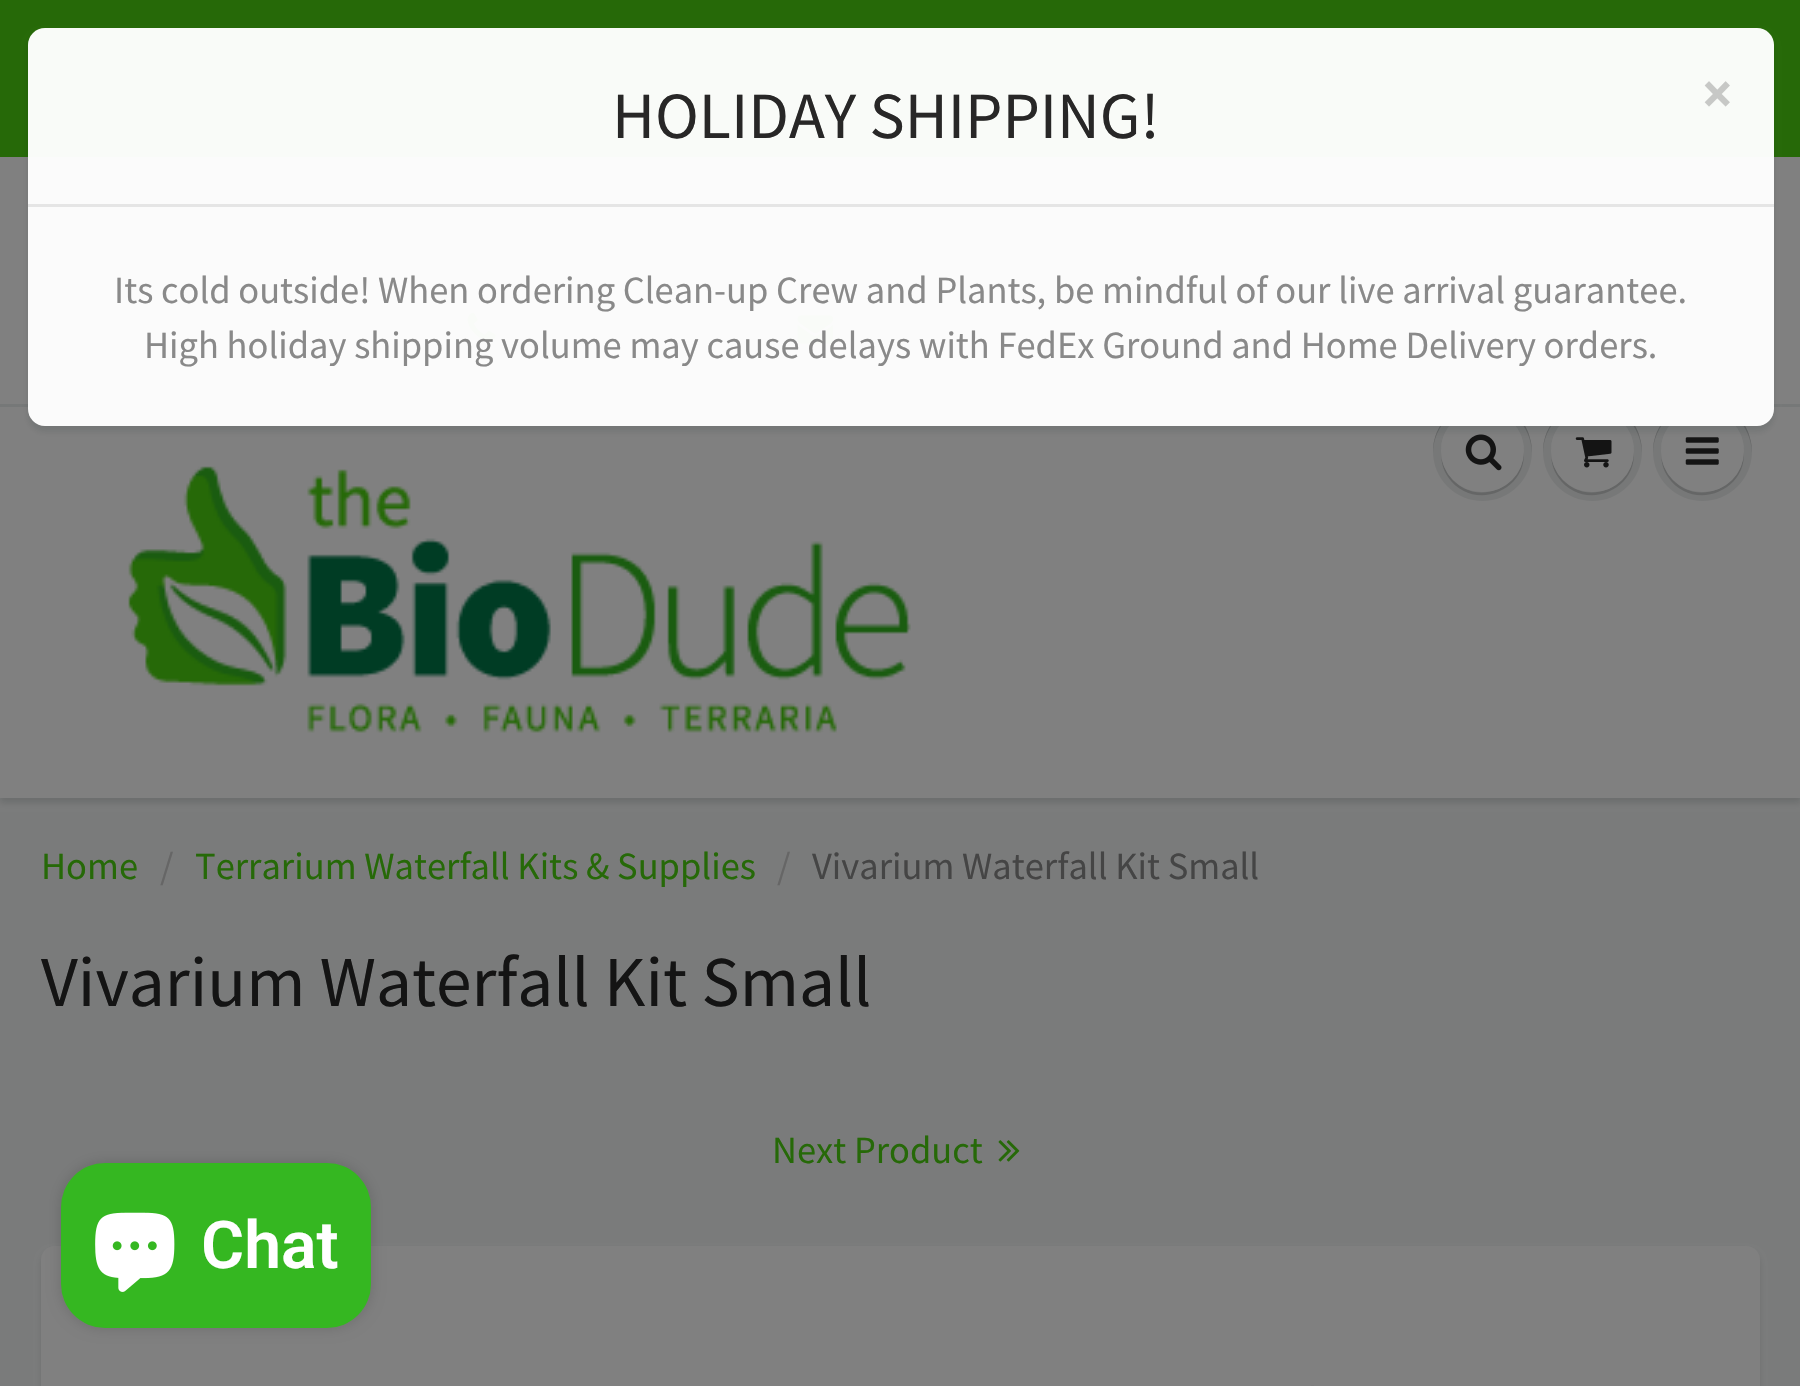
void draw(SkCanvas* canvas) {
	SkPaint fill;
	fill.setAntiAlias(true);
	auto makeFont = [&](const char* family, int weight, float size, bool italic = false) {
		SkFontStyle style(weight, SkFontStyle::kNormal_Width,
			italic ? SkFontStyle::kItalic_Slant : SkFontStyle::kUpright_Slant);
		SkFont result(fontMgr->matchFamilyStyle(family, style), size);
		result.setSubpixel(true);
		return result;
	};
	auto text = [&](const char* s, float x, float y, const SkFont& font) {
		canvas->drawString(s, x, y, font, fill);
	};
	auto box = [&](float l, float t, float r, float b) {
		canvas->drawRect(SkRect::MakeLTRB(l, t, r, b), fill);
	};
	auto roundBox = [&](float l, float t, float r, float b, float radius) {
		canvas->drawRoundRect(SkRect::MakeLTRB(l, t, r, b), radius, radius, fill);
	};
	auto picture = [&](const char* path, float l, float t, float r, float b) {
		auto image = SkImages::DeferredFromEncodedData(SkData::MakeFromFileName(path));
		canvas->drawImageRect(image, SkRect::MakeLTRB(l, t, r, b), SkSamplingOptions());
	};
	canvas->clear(0xFF808080);
	fill.setColor(0xFF266908);
	box(0, 0, 1800, 157);
	fill.setColor(0xFF767878);
	box(212, 190, 215, 242);
	box(388, 190, 391, 242);
	box(715, 190, 718, 242);
	box(1070, 190, 1073, 242);
	box(1411, 190, 1414, 242);
	box(41, 242, 44, 292);
	box(239, 242, 242, 292);
	picture("image0.png", 467, 312, 496, 341);
	box(754, 305, 757, 358);
	picture("image1.png", 797, 315, 834, 344);
	fill.setColor(0xFF7A7B7B);
	box(0, 798, 1800, 1386);
	fill.setColor(0x1F060D0E);
	fill.setMaskFilter(SkMaskFilter::MakeBlur(kNormal_SkBlurStyle, 3));
	canvas->drawRect(SkRect::MakeLTRB(0, 410, 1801, 803), fill);
	fill.setMaskFilter(nullptr);
	fill.setColor(0xFF808080);
	box(0, 407, 1800, 798);
	fill.setColor(0xFF767878);
	box(0, 404, 1800, 407);
	fill.setColor(0xFF777878);
	canvas->drawCircle(1482.5f, 451.5f, 49.5f, fill);
	fill.setColor(0xFF656666);
	canvas->drawPath(SkPathBuilder().moveTo(1482, 404).cubicTo(1510, 404, 1531, 425, 1532, 453).cubicTo(1532, 442, 1529, 432, 1524, 424).cubicTo(1496, 383, 1432, 404, 1433, 453).cubicTo(1434, 425, 1455, 404, 1482, 404).close().detach(), fill);
	canvas->drawPath(SkPathBuilder().moveTo(1441, 453).cubicTo(1441, 461, 1443, 470, 1448, 477).cubicTo(1473, 514, 1532, 490, 1523, 446).cubicTo(1529, 488, 1473, 510, 1449, 475).cubicTo(1444, 468, 1441, 460, 1441, 453).close().detach(), fill);
	fill.setColor(0xFF808080);
	roundBox(1441, 410, 1524, 492, 41);
	canvas->drawPath(SkPathBuilder().moveTo(1482, 412).cubicTo(1504, 412, 1523, 430, 1524, 453).cubicTo(1524, 444, 1522, 435, 1517, 428).cubicTo(1494, 394, 1440, 411, 1441, 452).cubicTo(1442, 430, 1460, 412, 1482, 412).close().detach(), fill);
	picture("image2.png", 1465, 434, 1502, 471);
	fill.setColor(0xFF777878);
	canvas->drawCircle(1592.5f, 451.5f, 49.5f, fill);
	fill.setColor(0xFF656666);
	canvas->drawPath(SkPathBuilder().moveTo(1592, 404).cubicTo(1620, 404, 1641, 425, 1642, 453).cubicTo(1642, 442, 1639, 432, 1634, 424).cubicTo(1606, 383, 1542, 404, 1543, 453).cubicTo(1544, 425, 1565, 404, 1592, 404).close().detach(), fill);
	canvas->drawPath(SkPathBuilder().moveTo(1551, 453).cubicTo(1551, 461, 1553, 470, 1558, 477).cubicTo(1583, 514, 1642, 490, 1633, 446).cubicTo(1639, 488, 1583, 510, 1559, 475).cubicTo(1554, 468, 1551, 460, 1551, 453).close().detach(), fill);
	fill.setColor(0xFF808080);
	roundBox(1551, 410, 1634, 492, 41);
	canvas->drawPath(SkPathBuilder().moveTo(1592, 412).cubicTo(1614, 412, 1633, 430, 1634, 453).cubicTo(1634, 444, 1632, 435, 1627, 428).cubicTo(1604, 394, 1550, 411, 1551, 452).cubicTo(1552, 430, 1570, 412, 1592, 412).close().detach(), fill);
	picture("image3.png", 1575, 437, 1612, 468);
	fill.setColor(0xFF777878);
	canvas->drawCircle(1702.5f, 451.5f, 49.5f, fill);
	fill.setColor(0xFF656666);
	canvas->drawPath(SkPathBuilder().moveTo(1702, 404).cubicTo(1730, 404, 1751, 425, 1752, 453).cubicTo(1752, 442, 1749, 432, 1744, 424).cubicTo(1716, 383, 1652, 404, 1653, 453).cubicTo(1654, 425, 1675, 404, 1702, 404).close().detach(), fill);
	canvas->drawPath(SkPathBuilder().moveTo(1661, 453).cubicTo(1661, 461, 1663, 470, 1668, 477).cubicTo(1693, 514, 1752, 490, 1743, 446).cubicTo(1749, 488, 1693, 510, 1669, 475).cubicTo(1664, 468, 1661, 460, 1661, 453).close().detach(), fill);
	fill.setColor(0xFF808080);
	roundBox(1661, 410, 1744, 492, 41);
	canvas->drawPath(SkPathBuilder().moveTo(1702, 412).cubicTo(1724, 412, 1743, 430, 1744, 453).cubicTo(1744, 444, 1742, 435, 1737, 428).cubicTo(1714, 394, 1660, 411, 1661, 452).cubicTo(1662, 430, 1680, 412, 1702, 412).close().detach(), fill);
	picture("image4.png", 1685, 437, 1719, 465);
	canvas->save();
	canvas->clipPath(SkPathBuilder(SkPathFillType::kEvenOdd).moveTo(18, 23).lineTo(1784, 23).lineTo(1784, 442).lineTo(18, 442).close().moveTo(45, 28).lineTo(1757, 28).cubicTo(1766.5f, 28, 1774, 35.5f, 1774, 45).lineTo(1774, 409).cubicTo(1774, 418.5f, 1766.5f, 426, 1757, 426).lineTo(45, 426).cubicTo(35.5f, 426, 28, 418.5f, 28, 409).lineTo(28, 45).cubicTo(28, 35.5f, 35.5f, 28, 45, 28).close().detach(), true);
	fill.setColor(0x1A0B191C);
	fill.setMaskFilter(SkMaskFilter::MakeBlur(kNormal_SkBlurStyle, 3));
	canvas->drawRoundRect(SkRect::MakeLTRB(28, 33, 1774, 432), 17, 17, fill);
	fill.setMaskFilter(nullptr);
	canvas->restore();
	fill.setColor(0xF7FFFFFF);
	roundBox(28, 28, 1774, 426, 17);
	fill.setColor(0xFFE5E5E5);
	box(28, 204, 1774, 207);
	picture("image5.png", 128, 466, 911, 733);
	picture("image6.png", 998, 1140, 1020, 1162);
	fill.setColor(0x1A060D0E);
	fill.setMaskFilter(SkMaskFilter::MakeBlur(kNormal_SkBlurStyle, 3));
	canvas->drawRoundRect(SkRect::MakeLTRB(41, 1251, 1760, 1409), 14, 14, fill);
	fill.setMaskFilter(nullptr);
	fill.setColor(0xFF808080);
	roundBox(41, 1246, 1760, 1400, 14);
	fill.setColor(0xFF7D7D7D);
	box(1311, 1385, 1314, 1386);
	fill.setColor(0x26000000);
	fill.setMaskFilter(SkMaskFilter::MakeBlur(kNormal_SkBlurStyle, 7));
	canvas->drawRoundRect(SkRect::MakeLTRB(61, 1163, 371, 1328), 44, 44, fill);
	fill.setMaskFilter(nullptr);
	fill.setColor(0xFF35B721);
	roundBox(61, 1163, 371, 1328, 44);
	picture("image7.png", 95, 1212, 175, 1292);
	auto font1 = makeFont("Source Sans Pro", 400, 66);
	fill.setColor(0xFF282727);
	text("HOLIDAY SHIPPING!", 612, 138, font1);
	auto font2 = makeFont("Source Sans Pro", 700, 58);
	fill.setColor(0xFFC7C8C6);
	text("×", 1702, 113, font2);
	auto font3 = makeFont("Source Sans Pro", 400, 38.5f);
	fill.setColor(0xFF898989);
	text("Its cold outside! When ordering Clean-up Crew and Plants, be mindful of our live arrival guarantee.", 114, 303, font3);
	text("High holiday shipping volume may cause delays with FedEx Ground and Home Delivery orders.", 144, 358, font3);
	fill.setColor(0xFF266908);
	text("Home", 41, 879, font3);
	fill.setColor(0xFF666666);
	text("/", 160, 879, font3);
	fill.setColor(0xFF266908);
	text("Terrarium Waterfall Kits & Supplies", 195, 879, font3);
	fill.setColor(0xFF666666);
	text("/", 777, 879, font3);
	fill.setColor(0xFF454545);
	text("Vivarium Waterfall Kit Small", 812, 879, font3);
	auto font4 = makeFont("Source Sans Pro", 400, 71.5f);
	fill.setColor(0xFF141414);
	text("Vivarium Waterfall Kit Small", 41, 1006, font4);
	fill.setColor(0xFF266908);
	text("Next Product", 772, 1163, font3);
	auto font5 = makeFont("Roboto", 600, 66);
	fill.setColor(0xFFFFFFFF);
	text("Chat", 201, 1268, font5);
}
